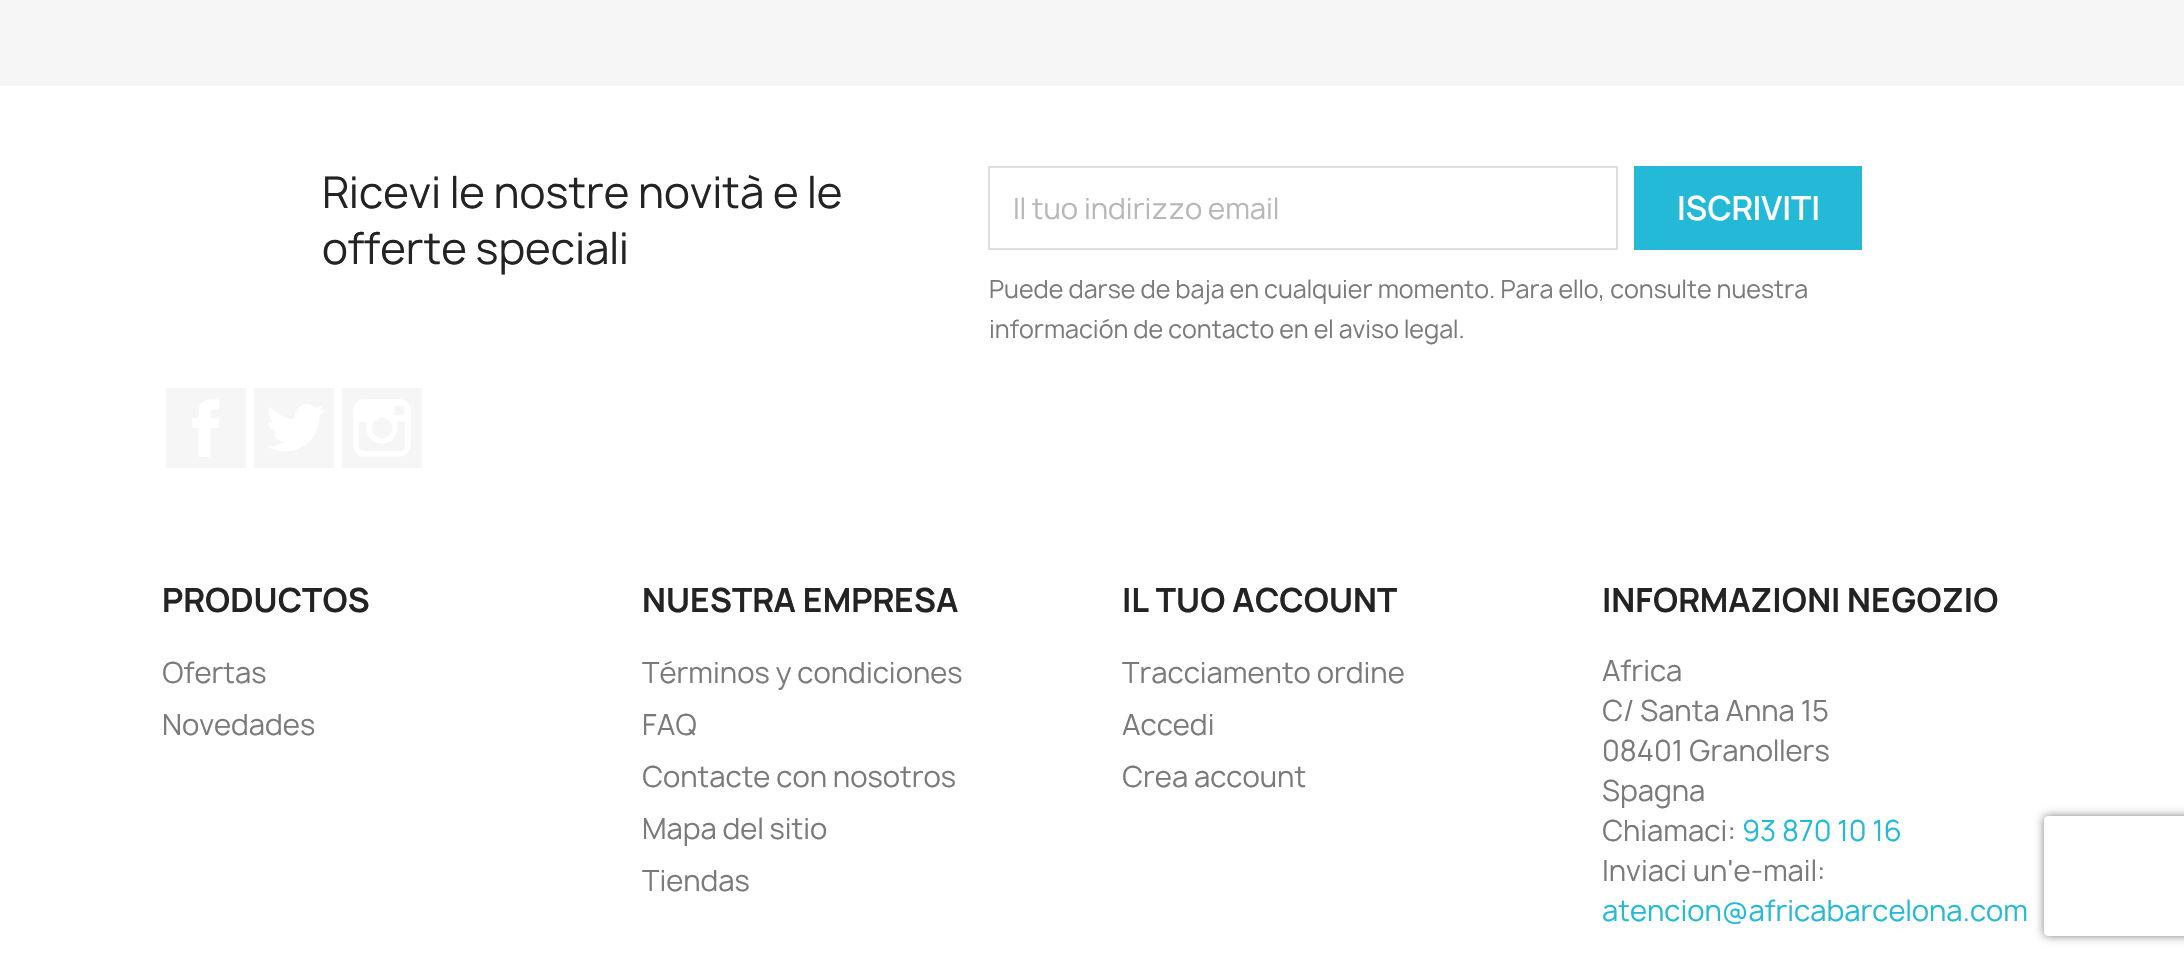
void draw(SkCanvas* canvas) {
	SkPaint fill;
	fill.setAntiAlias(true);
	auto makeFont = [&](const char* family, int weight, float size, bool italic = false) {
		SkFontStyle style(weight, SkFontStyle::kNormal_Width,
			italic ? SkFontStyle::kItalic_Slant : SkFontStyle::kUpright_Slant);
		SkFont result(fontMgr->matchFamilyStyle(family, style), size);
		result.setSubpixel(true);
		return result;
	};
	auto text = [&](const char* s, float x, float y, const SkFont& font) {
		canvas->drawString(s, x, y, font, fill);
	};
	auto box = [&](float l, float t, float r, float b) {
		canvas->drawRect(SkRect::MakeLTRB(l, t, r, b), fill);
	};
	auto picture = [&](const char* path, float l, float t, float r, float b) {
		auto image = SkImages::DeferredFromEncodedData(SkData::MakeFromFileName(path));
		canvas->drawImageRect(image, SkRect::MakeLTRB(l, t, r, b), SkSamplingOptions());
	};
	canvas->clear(0xFFFFFFFF);
	fill.setColor(0xFFF6F6F6);
	box(0, 0, 2184, 86);
	fill.setStyle(SkPaint::kStroke_Style);
	fill.setStrokeWidth(2);
	fill.setColor(0xFFDDDDDD);
	canvas->drawRect(SkRect::MakeLTRB(989, 167, 1617, 249), fill);
	fill.setStyle(SkPaint::kFill_Style);
	fill.setColor(0xFF24B9D7);
	box(1634, 166, 1862, 250);
	fill.setColor(0xFFF6F6F6);
	box(166, 388, 246, 468);
	picture("image0.png", 192, 399, 219, 457);
	box(254, 388, 334, 468);
	picture("image1.png", 268, 404, 325, 452);
	box(342, 388, 422, 468);
	picture("image2.png", 353, 399, 411, 457);
	canvas->save();
	canvas->clipPath(SkPathBuilder(SkPathFillType::kEvenOdd).moveTo(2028, 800).lineTo(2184, 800).lineTo(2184, 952).lineTo(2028, 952).close().moveTo(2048, 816).lineTo(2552, 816).cubicTo(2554, 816, 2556, 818, 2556, 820).lineTo(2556, 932).cubicTo(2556, 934, 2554, 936, 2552, 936).lineTo(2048, 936).cubicTo(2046, 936, 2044, 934, 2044, 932).lineTo(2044, 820).cubicTo(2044, 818, 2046, 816, 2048, 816).close().detach(), true);
	fill.setColor(0xFF808080);
	fill.setMaskFilter(SkMaskFilter::MakeBlur(kNormal_SkBlurStyle, 5));
	canvas->drawRoundRect(SkRect::MakeLTRB(2044, 816, 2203, 936), 4, 4, fill);
	fill.setMaskFilter(nullptr);
	canvas->restore();
	auto font1 = makeFont("Manrope", 400, 42);
	fill.setColor(0xFF232323);
	text("Ricevi le nostre novità e le", 322, 208, font1);
	text("offerte speciali", 322, 264, font1);
	auto font2 = makeFont("Manrope", 400, 28);
	fill.setColor(0xFFB7B7B7);
	text("Il tuo indirizzo email", 1013, 219, font2);
	auto font3 = makeFont("Manrope", 600, 32);
	fill.setColor(0xFFFFFFFF);
	text("ISCRIVITI", 1677, 220, font3);
	auto font4 = makeFont("Manrope", 400, 24);
	fill.setColor(0xFF7A7A7A);
	text("Puede darse de baja en cualquier momento. Para ello, consulte nuestra", 989, 298, font4);
	text("información de contacto en el aviso legal.", 989, 338, font4);
	auto font5 = makeFont("Manrope", 700, 32);
	fill.setColor(0xFF232323);
	text("PRODUCTOS", 162, 612, font5);
	fill.setColor(0xFF7A7A7A);
	text("Ofertas", 162, 683, font2);
	text("Novedades", 162, 735, font2);
	fill.setColor(0xFF232323);
	text("NUESTRA EMPRESA", 642, 612, font5);
	fill.setColor(0xFF7A7A7A);
	text("Términos y condiciones", 642, 683, font2);
	text("FAQ", 642, 735, font2);
	text("Contacte con nosotros", 642, 787, font2);
	text("Mapa del sitio", 642, 839, font2);
	text("Tiendas", 642, 891, font2);
	fill.setColor(0xFF232323);
	text("IL TUO ACCOUNT", 1122, 612, font5);
	fill.setColor(0xFF7A7A7A);
	text("Tracciamento ordine", 1122, 683, font2);
	text("Accedi", 1122, 735, font2);
	text("Crea account", 1122, 787, font2);
	fill.setColor(0xFF232323);
	text("INFORMAZIONI NEGOZIO", 1602, 612, font5);
	fill.setColor(0xFF7A7A7A);
	text("Africa", 1602, 681, font2);
	text("C/ Santa Anna 15", 1602, 721, font2);
	text("08401 Granollers", 1602, 761, font2);
	text("Spagna", 1602, 801, font2);
	text("Chiamaci:", 1602, 841, font2);
	fill.setColor(0xFF24B9D7);
	text("93 870 10 16", 1742, 841, font2);
	fill.setColor(0xFF7A7A7A);
	text("Inviaci un'e-mail:", 1602, 881, font2);
	fill.setColor(0xFF24B9D7);
	text("atencion@africabarcelona.com", 1602, 921, font2);
}
